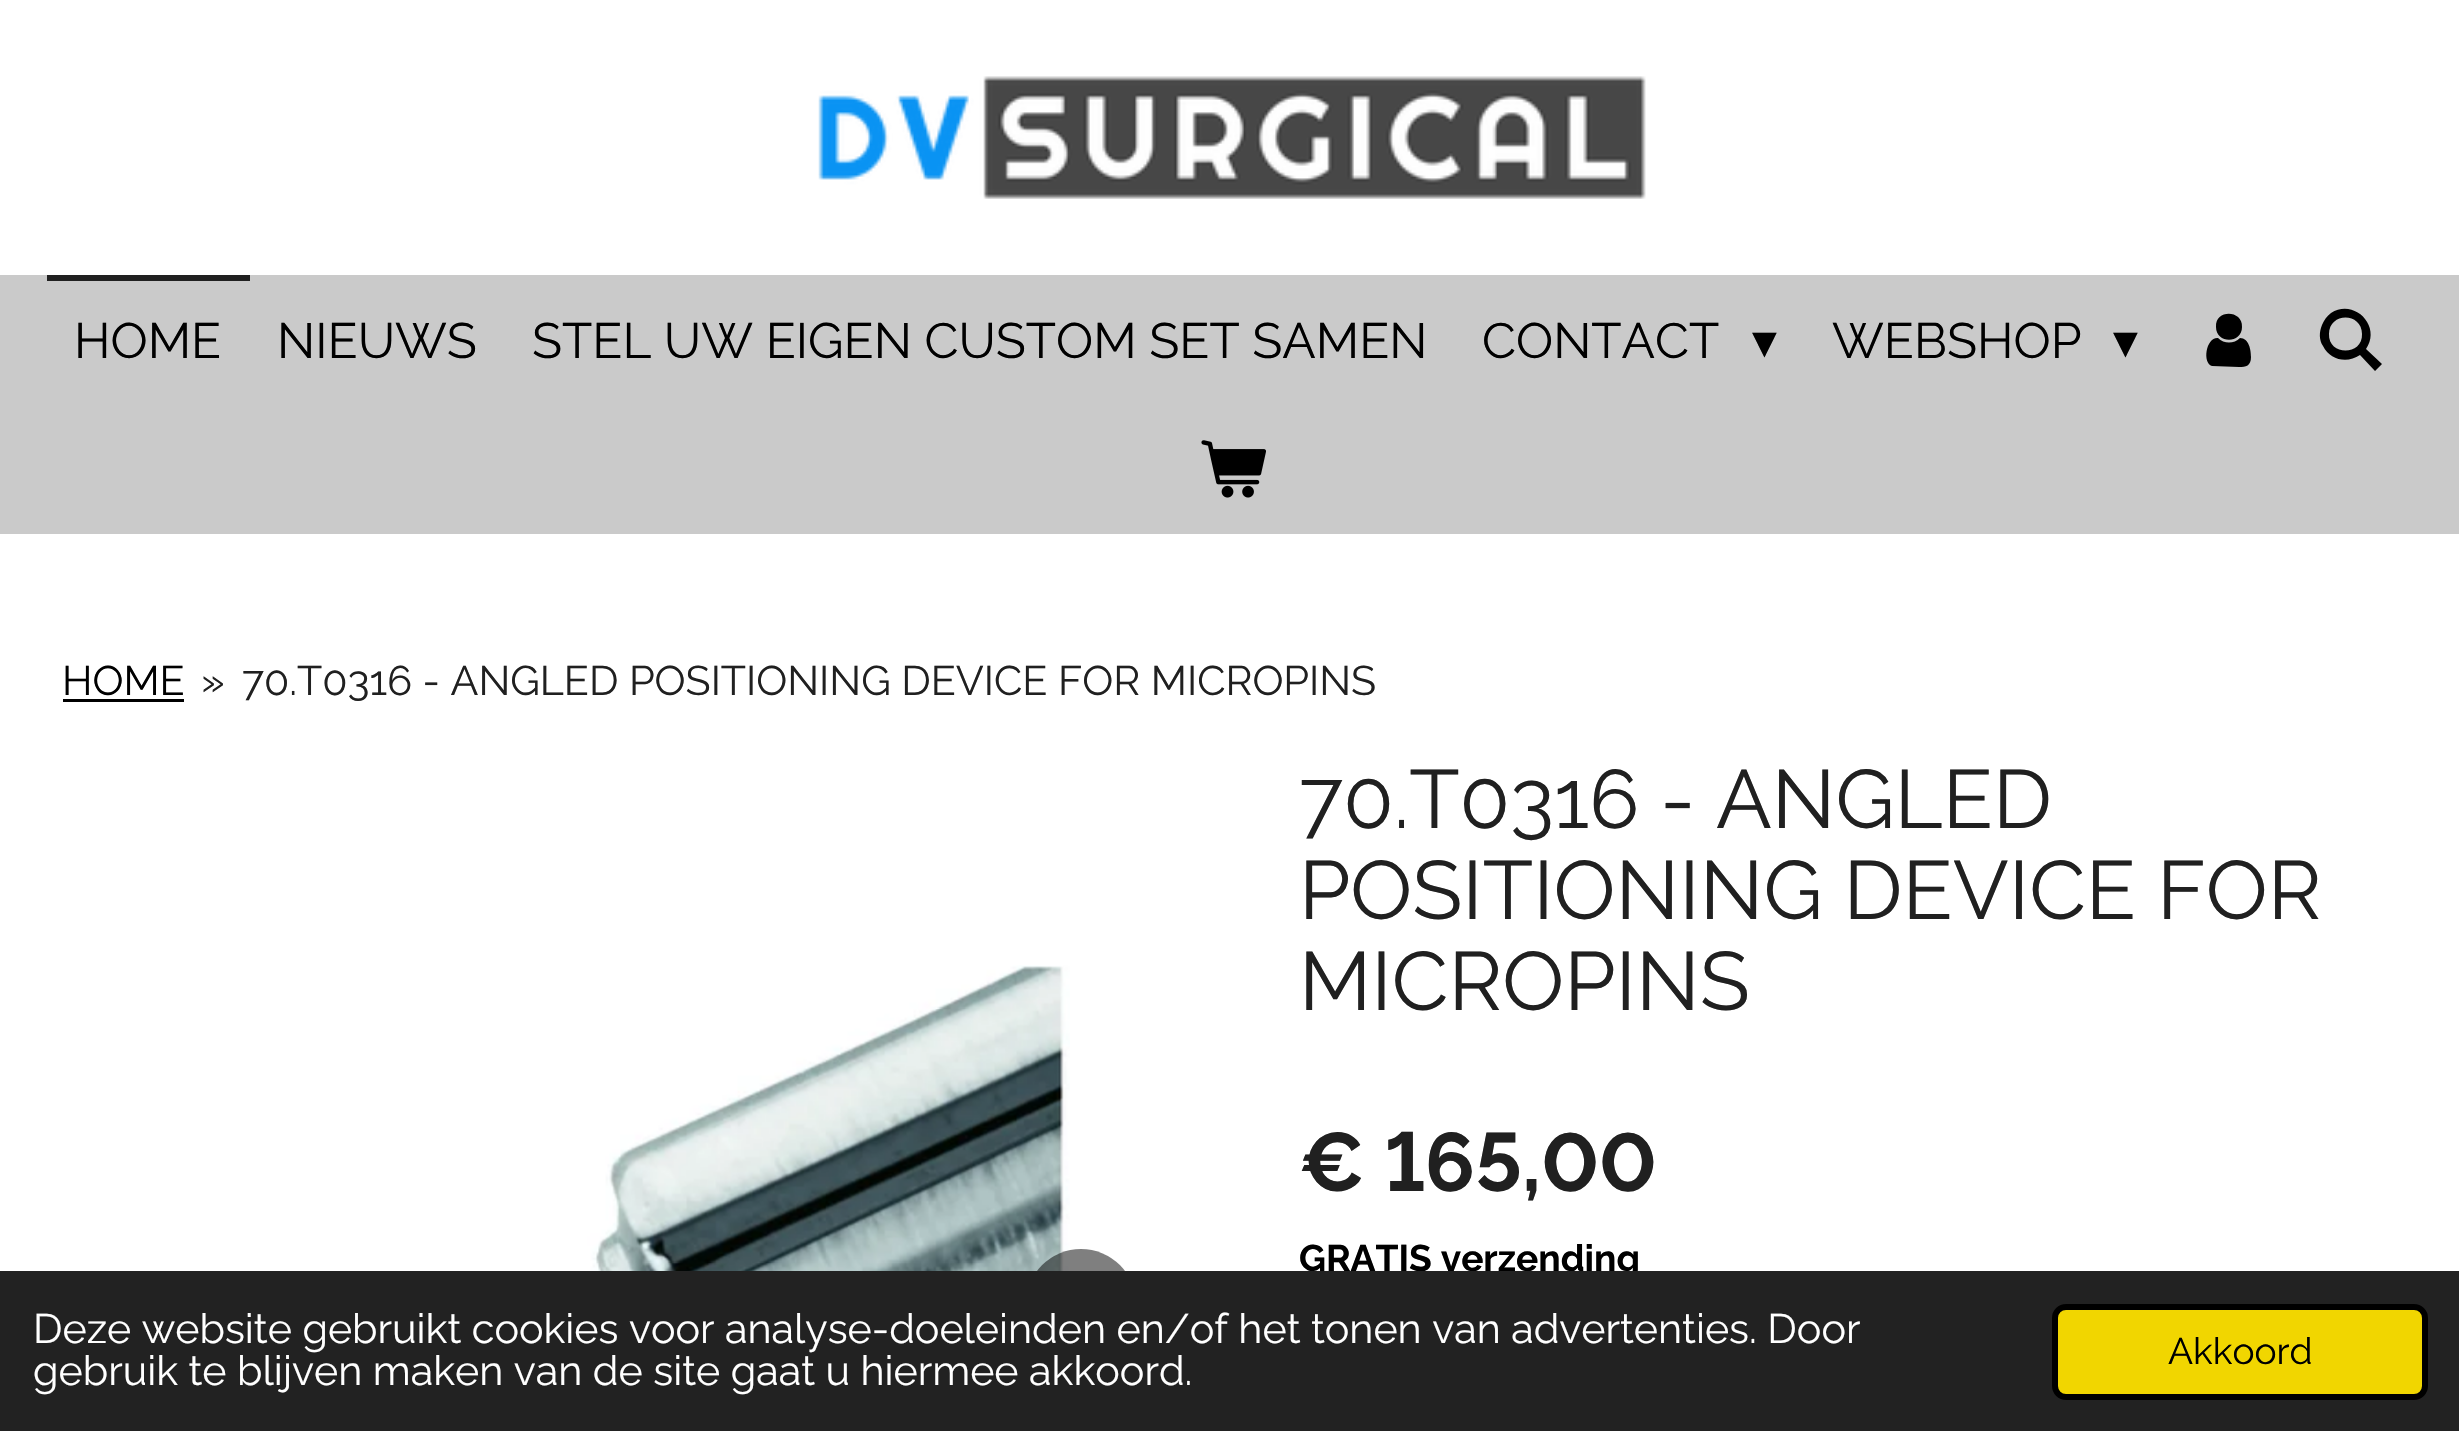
void draw(SkCanvas* canvas) {
	SkPaint fill;
	fill.setAntiAlias(true);
	auto makeFont = [&](const char* family, int weight, float size, bool italic = false) {
		SkFontStyle style(weight, SkFontStyle::kNormal_Width,
			italic ? SkFontStyle::kItalic_Slant : SkFontStyle::kUpright_Slant);
		SkFont result(fontMgr->matchFamilyStyle(family, style), size);
		result.setSubpixel(true);
		return result;
	};
	auto text = [&](const char* s, float x, float y, const SkFont& font) {
		canvas->drawString(s, x, y, font, fill);
	};
	auto box = [&](float l, float t, float r, float b) {
		canvas->drawRect(SkRect::MakeLTRB(l, t, r, b), fill);
	};
	auto picture = [&](const char* path, float l, float t, float r, float b) {
		auto image = SkImages::DeferredFromEncodedData(SkData::MakeFromFileName(path));
		canvas->drawImageRect(image, SkRect::MakeLTRB(l, t, r, b), SkSamplingOptions());
	};
	canvas->clear(0xFFFFFFFF);
	picture("image0.png", 818, 76, 1646, 199);
	fill.setColor(0xFFCACACA);
	box(0, 275, 2459, 534);
	fill.setColor(0xFF202020);
	box(47, 275, 250, 281);
	fill.setColor(0xFF000000);
	canvas->drawPath(SkPathBuilder().moveTo(2251, 357).cubicTo(2251, 366, 2246, 367, 2239, 367).lineTo(2212, 366).cubicTo(2202, 363, 2206, 337, 2218, 338).cubicTo(2224, 344, 2234, 344, 2240, 338).cubicTo(2249, 338, 2251, 350, 2251, 357).close().moveTo(2242, 327).cubicTo(2242, 344, 2216, 344, 2216, 327).cubicTo(2215, 309, 2243, 310, 2242, 327).close().detach(), fill);
	canvas->drawPath(SkPathBuilder().moveTo(2366, 349).lineTo(2382, 364).lineTo(2375, 371).lineTo(2360, 355).cubicTo(2347, 364, 2330, 360, 2323, 346).cubicTo(2319, 340, 2319, 332, 2322, 325).cubicTo(2324, 320, 2327, 316, 2331, 313).cubicTo(2354, 298, 2382, 326, 2366, 349).close().moveTo(2362, 334).cubicTo(2362, 312, 2329, 312, 2329, 334).cubicTo(2328, 356, 2363, 356, 2362, 334).close().detach(), fill);
	picture("image1.png", 1201, 440, 1266, 498);
	box(63, 699, 184, 702);
	picture("image2.png", 375, 965, 1070, 1271);
	fill.setColor(0x80000000);
	canvas->drawCircle(1081, 1304, 55, fill);
	auto font1 = makeFont("Raleway", 400, 49.5f);
	fill.setColor(0xFF000000);
	text("HOME", 74, 358, font1);
	text("NIEUWS", 277, 358, font1);
	text("STEL UW EIGEN CUSTOM SET SAMEN", 532, 358, font1);
	text("CONTACT", 1482, 358, font1);
	auto font2 = makeFont("DejaVu Sans", 400, 49.5f);
	text("▾", 1752, 358, font2);
	text("WEBSHOP", 1832, 358, font1);
	text("▾", 2113, 358, font2);
	auto font3 = makeFont("Raleway", 400, 41.25f);
	text("HOME", 62, 695, font3);
	fill.setColor(0xFF202020);
	text("»", 201, 695, font3);
	text("70.T0316 - ANGLED POSITIONING DEVICE FOR MICROPINS", 242, 695, font3);
	auto font4 = makeFont("Raleway", 400, 82.5f);
	text("70.T0316 - ANGLED", 1299, 828, font4);
	text("POSITIONING DEVICE FOR", 1299, 919, font4);
	text("MICROPINS", 1299, 1010, font4);
	auto font5 = makeFont("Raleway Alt", 700, 82.5f);
	text("€ 165,00", 1299, 1191, font5);
	auto font6 = makeFont("Raleway", 700, 37.1f);
	fill.setColor(0xFF000000);
	text("GRATIS verzending", 1299, 1271, font6);
	fill.setColor(0xFF222222);
	box(0, 1271, 2459, 1431);
	fill.setColor(0xFFFFFFFF);
	text("Deze website gebruikt cookies voor analyse-doeleinden en/of het tonen van advertenties. Door", 33, 1343, font3);
	text("gebruik te blijven maken van de site gaat u hiermee akkoord.", 33, 1385, font3);
	fill.setColor(0xFFF1D600);
	canvas->drawRoundRect(SkRect::MakeLTRB(2055, 1307, 2425, 1397), 11, 11, fill);
	fill.setStyle(SkPaint::kStroke_Style);
	fill.setStrokeWidth(6);
	fill.setColor(0xFF000000);
	canvas->drawRoundRect(SkRect::MakeLTRB(2055, 1307, 2425, 1397), 11, 11, fill);
	auto font7 = makeFont("Raleway", 400, 37.1f);
	fill.setStyle(SkPaint::kFill_Style);
	text("Akkoord", 2168, 1364, font7);
}
